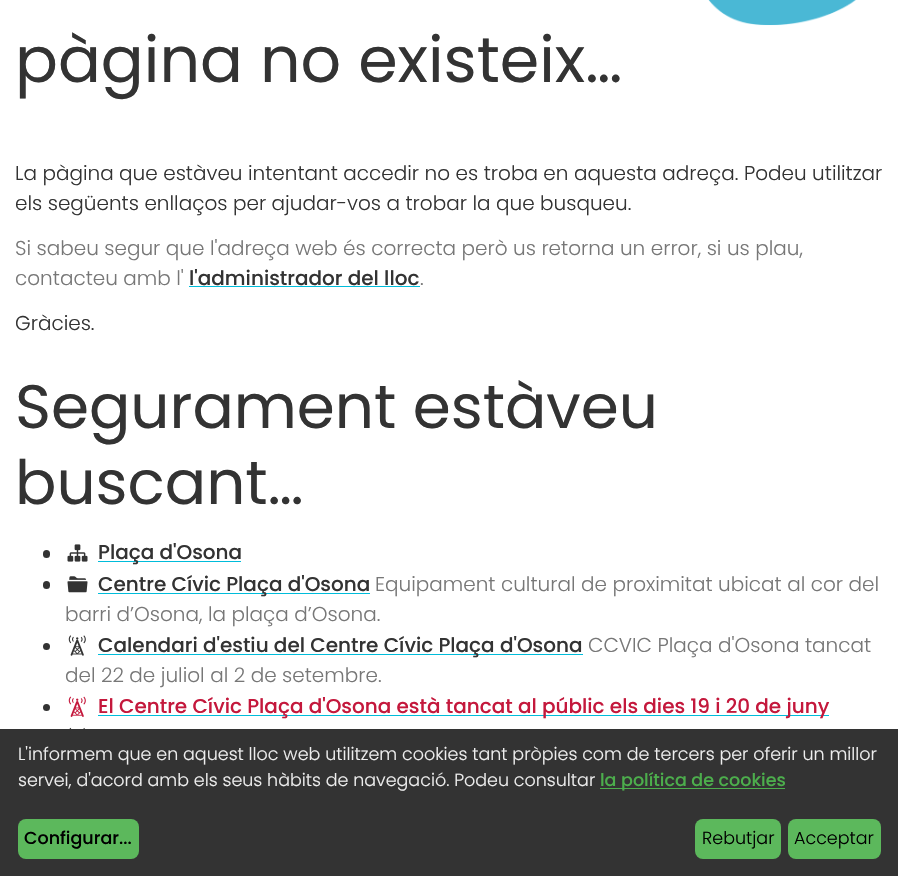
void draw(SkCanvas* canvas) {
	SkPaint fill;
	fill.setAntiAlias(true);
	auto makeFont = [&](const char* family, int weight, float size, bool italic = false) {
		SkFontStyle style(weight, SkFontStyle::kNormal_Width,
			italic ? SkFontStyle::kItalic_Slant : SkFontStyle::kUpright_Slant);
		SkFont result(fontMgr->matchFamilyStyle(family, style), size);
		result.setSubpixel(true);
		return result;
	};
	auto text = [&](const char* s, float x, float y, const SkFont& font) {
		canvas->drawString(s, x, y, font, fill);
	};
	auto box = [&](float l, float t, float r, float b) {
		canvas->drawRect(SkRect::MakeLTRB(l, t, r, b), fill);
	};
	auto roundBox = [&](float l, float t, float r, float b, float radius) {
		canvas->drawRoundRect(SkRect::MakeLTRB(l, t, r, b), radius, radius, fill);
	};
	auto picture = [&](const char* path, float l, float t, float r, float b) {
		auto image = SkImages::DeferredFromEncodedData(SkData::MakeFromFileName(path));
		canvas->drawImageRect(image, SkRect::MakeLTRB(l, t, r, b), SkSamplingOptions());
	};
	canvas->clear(0xFFFFFFFF);
	picture("image0.png", 708, 0, 856, 26);
	fill.setColor(0xFF00BCDA);
	box(189, 286, 420, 287);
	fill.setColor(0xFF333333);
	roundBox(43, 550, 50, 558, 3.5f);
	picture("image1.png", 67, 544, 88, 562);
	fill.setColor(0xFF00BCDA);
	box(98, 561, 241, 562);
	fill.setColor(0xFF333333);
	roundBox(43, 581, 50, 589, 3.5f);
	picture("image2.png", 67, 576, 88, 593);
	fill.setColor(0xFF00BCDA);
	box(98, 593, 370, 594);
	fill.setColor(0xFF333333);
	canvas->drawCircle(46.5f, 646.5f, 3.5f, fill);
	picture("image3.png", 68, 635, 86, 656);
	fill.setColor(0xFF00BCDA);
	box(98, 654, 583, 655);
	fill.setColor(0xFF333333);
	canvas->drawCircle(46.5f, 707.5f, 3.5f, fill);
	picture("image4.png", 68, 696, 86, 717);
	fill.setColor(0xFF00BCDA);
	box(98, 715, 829, 716);
	picture("image5.png", 69, 727, 85, 729);
	fill.setColor(0xFF333333);
	box(0, 729, 898, 876);
	fill.setColor(0xFF4CAE4C);
	box(600, 788, 785, 789);
	fill.setColor(0xFF5CB85C);
	roundBox(18, 819, 139, 859, 8);
	roundBox(695, 819, 781, 859, 8);
	roundBox(788, 819, 881, 859, 8);
	auto font1 = makeFont("Poppins", 400, 63.5f);
	fill.setColor(0xFF333333);
	text("pàgina no existeix…", 15, 82, font1);
	auto font2 = makeFont("Poppins", 300, 20);
	text("La pàgina que estàveu intentant accedir no es troba en aquesta adreça. Podeu utilitzar", 15, 180, font2);
	text("els següents enllaços per ajudar-vos a trobar la que busqueu.", 15, 210, font2);
	fill.setColor(0xFF777777);
	text("Si sabeu segur que l'adreça web és correcta però us retorna un error, si us plau,", 15, 255, font2);
	text("contacteu amb l'", 15, 285, font2);
	auto font3 = makeFont("Poppins", 500, 20);
	fill.setColor(0xFF333333);
	text("l'administrador del lloc", 189, 285, font3);
	fill.setColor(0xFF777777);
	text(".", 420, 285, font2);
	fill.setColor(0xFF333333);
	text("Gràcies.", 15, 330, font2);
	auto font4 = makeFont("Poppins", 400, 61.25f);
	text("Segurament estàveu", 15, 428, font4);
	text("buscant…", 15, 504, font4);
	text("Plaça d'Osona", 98, 559, font3);
	text("Centre Cívic Plaça d'Osona", 98, 591, font3);
	fill.setColor(0xFF777777);
	text("Equipament cultural de proximitat ubicat al cor del", 375, 591, font2);
	text("barri d’Osona, la plaça d’Osona.", 65, 621, font2);
	fill.setColor(0xFF333333);
	text("Calendari d'estiu del Centre Cívic Plaça d'Osona", 98, 652, font3);
	fill.setColor(0xFF777777);
	text("CCVIC Plaça d'Osona tancat", 588, 652, font2);
	text("del 22 de juliol al 2 de setembre.", 65, 682, font2);
	fill.setColor(0xFFC4183C);
	text("El Centre Cívic Plaça d'Osona està tancat al públic els dies 19 i 20 de juny", 98, 713, font3);
	auto font5 = makeFont("Poppins", 300, 17.5f);
	fill.setColor(0xFFEEEEEE);
	text("L'informem que en aquest lloc web utilitzem cookies tant pròpies com de tercers per oferir un millor", 18, 760, font5);
	text("servei, d'acord amb els seus hàbits de navegació. Podeu consultar", 18, 786, font5);
	auto font6 = makeFont("Poppins", 500, 17.5f);
	fill.setColor(0xFF4CAE4C);
	text("la política de cookies", 600, 786, font6);
	fill.setColor(0xFF000000);
	text("Configurar...", 24, 844, font6);
	text("Rebutjar", 702, 844, font5);
	text("Acceptar", 794, 844, font5);
}
